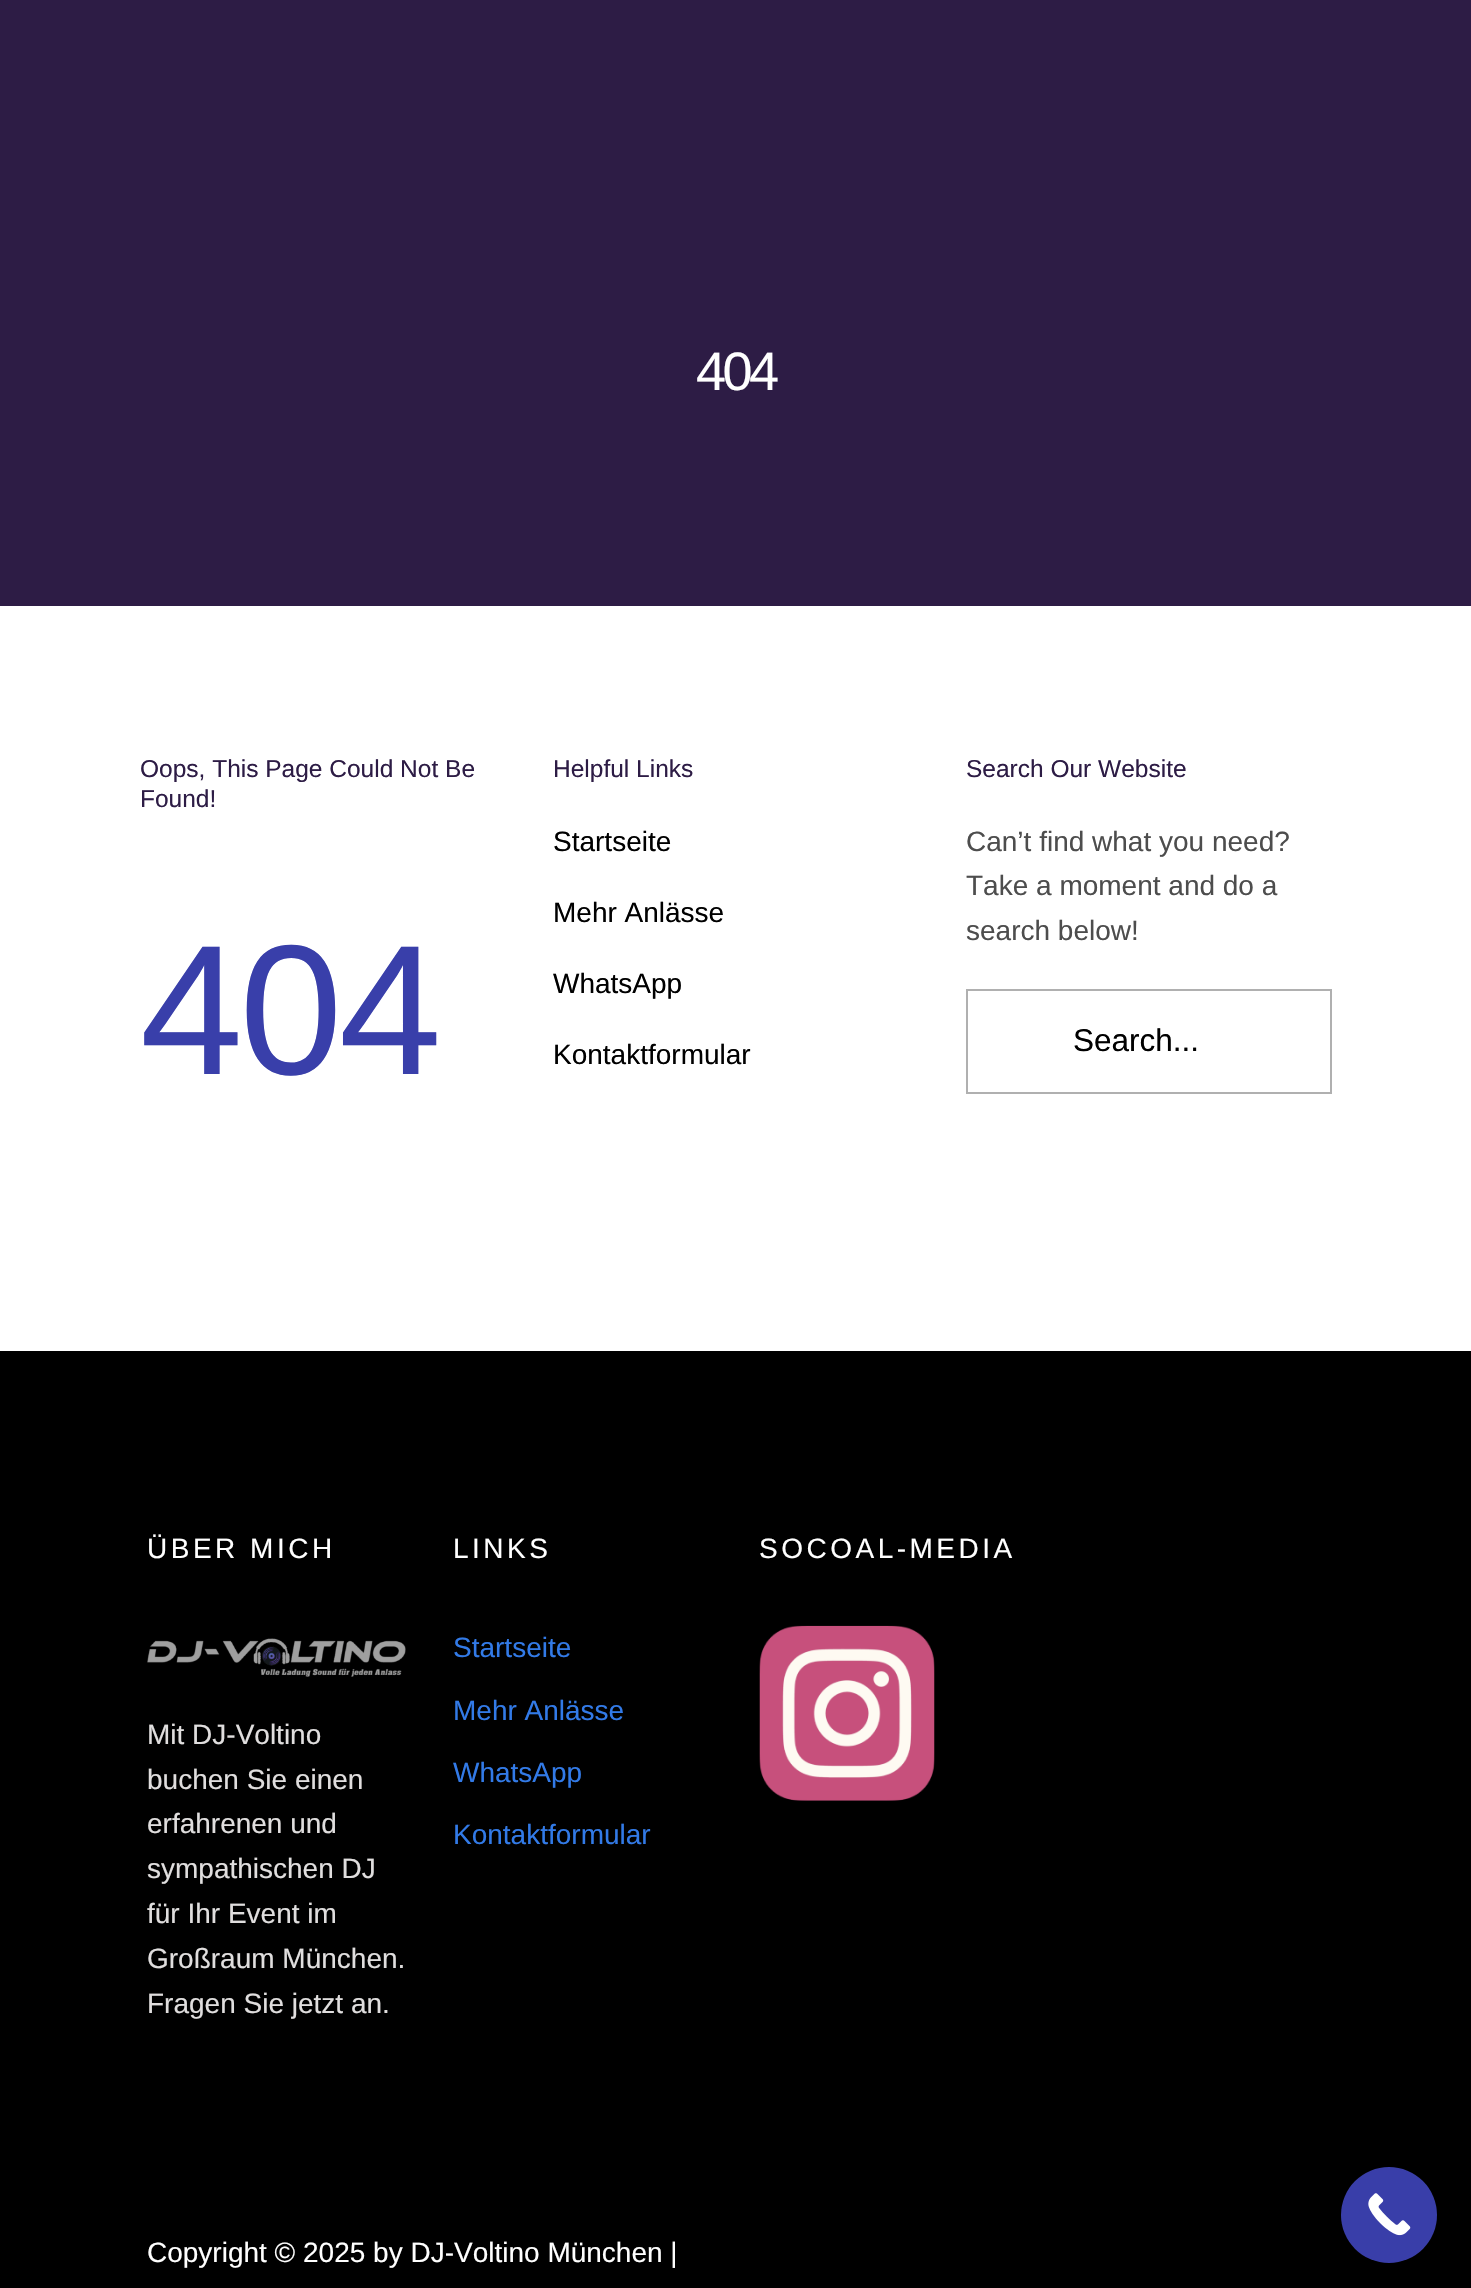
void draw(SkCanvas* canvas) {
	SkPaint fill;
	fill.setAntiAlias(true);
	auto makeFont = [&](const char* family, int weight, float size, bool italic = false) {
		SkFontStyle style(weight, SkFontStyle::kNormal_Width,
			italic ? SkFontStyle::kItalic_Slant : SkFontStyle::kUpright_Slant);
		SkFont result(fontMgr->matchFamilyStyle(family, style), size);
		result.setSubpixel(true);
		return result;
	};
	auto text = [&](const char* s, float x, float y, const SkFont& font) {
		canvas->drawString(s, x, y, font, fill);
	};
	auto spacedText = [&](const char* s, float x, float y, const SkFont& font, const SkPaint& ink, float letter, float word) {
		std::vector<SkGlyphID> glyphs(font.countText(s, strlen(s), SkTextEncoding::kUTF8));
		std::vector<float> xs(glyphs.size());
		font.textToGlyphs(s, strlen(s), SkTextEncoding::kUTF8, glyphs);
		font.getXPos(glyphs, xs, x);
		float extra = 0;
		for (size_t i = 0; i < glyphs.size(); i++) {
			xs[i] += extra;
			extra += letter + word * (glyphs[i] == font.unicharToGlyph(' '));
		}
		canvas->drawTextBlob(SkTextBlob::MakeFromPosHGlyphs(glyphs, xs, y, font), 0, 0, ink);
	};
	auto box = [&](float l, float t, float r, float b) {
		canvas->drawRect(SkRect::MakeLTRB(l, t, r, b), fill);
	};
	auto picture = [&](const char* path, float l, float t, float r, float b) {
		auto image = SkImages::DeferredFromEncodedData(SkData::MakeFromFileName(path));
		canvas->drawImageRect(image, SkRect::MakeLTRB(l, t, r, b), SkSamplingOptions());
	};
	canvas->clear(0xFFFFFFFF);
	fill.setColor(0xFF2D1C45);
	box(0, 0, 1471, 606);
	fill.setStyle(SkPaint::kStroke_Style);
	fill.setStrokeWidth(2);
	fill.setColor(0xFFB0B0B0);
	canvas->drawRect(SkRect::MakeLTRB(967, 990, 1331, 1093), fill);
	fill.setStyle(SkPaint::kFill_Style);
	fill.setColor(0xFF000000);
	box(0, 1351, 1471, 2288);
	picture("image0.png", 147, 1638, 406, 1677);
	picture("image1.png", 759, 1625, 935, 1801);
	fill.setColor(0xFF393EA9);
	canvas->drawCircle(1389, 2215, 48, fill);
	picture("image2.png", 1368, 2193, 1411, 2236);
	auto font1 = makeFont("Liberation Sans", 400, 54);
	fill.setColor(0xFFFFFFFF);
	spacedText("404", 696, 390, font1, fill, -3.5f, 0);
	auto font2 = makeFont("Liberation Sans", 400, 24.5f);
	fill.setColor(0xFF2D1C45);
	text("Oops, This Page Could Not Be", 140, 777, font2);
	text("Found!", 140, 807, font2);
	auto font3 = makeFont("Liberation Sans", 400, 185);
	fill.setColor(0xFF393FAA);
	spacedText("404", 140, 1074, font3, fill, -3.5f, 0);
	fill.setColor(0xFF2D1C45);
	text("Helpful Links", 553, 777, font2);
	auto font4 = makeFont("Liberation Sans", 400, 28);
	fill.setColor(0xFF000000);
	text("Startseite", 553, 851, font4);
	text("Mehr Anlässe", 553, 922, font4);
	text("WhatsApp", 553, 993, font4);
	text("Kontaktformular", 553, 1064, font4);
	fill.setColor(0xFF2D1C45);
	text("Search Our Website", 966, 777, font2);
	fill.setColor(0xFF4D4D4D);
	text("Can’t find what you need?", 966, 851, font4);
	text("Take a moment and do a", 966, 895, font4);
	text("search below!", 966, 940, font4);
	auto font5 = makeFont("Liberation Sans", 400, 31.5f);
	fill.setColor(0xFF000000);
	text("Search...", 1073, 1051, font5);
	fill.setColor(0xFFFFFFFF);
	spacedText("ÜBER MICH", 147, 1558, font4, fill, 3.5f, 0);
	fill.setColor(0xFFE0DEDE);
	text("Mit DJ-Voltino", 147, 1744, font4);
	text("buchen Sie einen", 147, 1789, font4);
	text("erfahrenen und", 147, 1833, font4);
	text("sympathischen DJ", 147, 1878, font4);
	text("für Ihr Event im", 147, 1923, font4);
	text("Großraum München.", 147, 1968, font4);
	text("Fragen Sie jetzt an.", 147, 2013, font4);
	fill.setColor(0xFFFFFFFF);
	spacedText("LINKS", 453, 1558, font4, fill, 3.5f, 0);
	fill.setColor(0xFF327AE7);
	text("Startseite", 453, 1657, font4);
	text("Mehr Anlässe", 453, 1720, font4);
	text("WhatsApp", 453, 1782, font4);
	text("Kontaktformular", 453, 1844, font4);
	fill.setColor(0xFFFFFFFF);
	spacedText("SOCOAL-MEDIA", 759, 1558, font4, fill, 3.5f, 0);
	text("Copyright © 2025 by DJ-Voltino München |", 147, 2262, font4);
}
